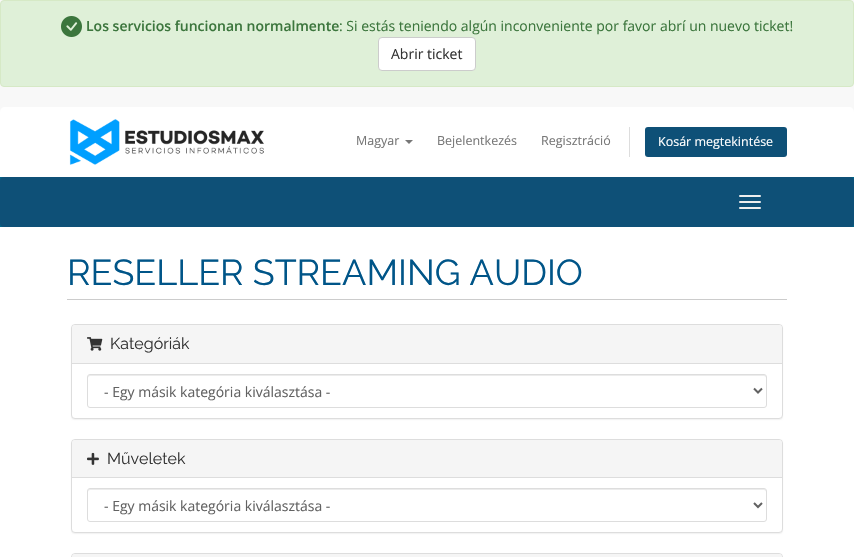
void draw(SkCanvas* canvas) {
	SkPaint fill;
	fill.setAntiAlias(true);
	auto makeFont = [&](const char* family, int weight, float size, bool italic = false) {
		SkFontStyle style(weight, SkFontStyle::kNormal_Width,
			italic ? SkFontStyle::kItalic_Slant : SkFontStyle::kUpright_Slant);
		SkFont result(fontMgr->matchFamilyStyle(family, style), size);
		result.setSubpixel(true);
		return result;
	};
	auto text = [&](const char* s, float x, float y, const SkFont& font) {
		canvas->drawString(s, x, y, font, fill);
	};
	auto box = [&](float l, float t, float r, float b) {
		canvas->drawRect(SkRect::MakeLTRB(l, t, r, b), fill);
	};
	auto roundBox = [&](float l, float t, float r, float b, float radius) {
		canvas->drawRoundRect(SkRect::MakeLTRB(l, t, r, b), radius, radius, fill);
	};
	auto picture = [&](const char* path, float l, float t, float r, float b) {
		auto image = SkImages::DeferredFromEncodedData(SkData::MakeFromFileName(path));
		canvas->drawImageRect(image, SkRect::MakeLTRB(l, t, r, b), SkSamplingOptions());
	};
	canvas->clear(0xFFF8F8F8);
	fill.setColor(0xFFDFF0D8);
	canvas->drawRoundRect(SkRect::MakeLTRB(0.5f, 0.5f, 853.5f, 86.5f), 3.5f, 3.5f, fill);
	fill.setStyle(SkPaint::kStroke_Style);
	fill.setStrokeWidth(1);
	fill.setColor(0xFFD6E9C6);
	canvas->drawRoundRect(SkRect::MakeLTRB(0.5f, 0.5f, 853.5f, 86.5f), 3.5f, 3.5f, fill);
	picture("image0.png", 61, 16, 82, 37);
	fill.setStyle(SkPaint::kFill_Style);
	fill.setColor(0xFFFFFFFF);
	canvas->drawRoundRect(SkRect::MakeLTRB(378.5f, 37.5f, 475.5f, 70.5f), 3.5f, 3.5f, fill);
	fill.setStyle(SkPaint::kStroke_Style);
	fill.setColor(0xFFCCCCCC);
	canvas->drawRoundRect(SkRect::MakeLTRB(378.5f, 37.5f, 475.5f, 70.5f), 3.5f, 3.5f, fill);
	fill.setStyle(SkPaint::kFill_Style);
	fill.setColor(0xFFFFFFFF);
	canvas->drawPath(SkPathBuilder().moveTo(5, 107).lineTo(849, 107).cubicTo(852, 107, 854, 109, 854, 112).lineTo(854, 177).lineTo(0, 177).lineTo(0, 112).cubicTo(0, 109, 2, 107, 5, 107).close().detach(), fill);
	picture("image1.png", 69, 119, 264, 165);
	fill.setColor(0xFF777777);
	canvas->drawPath(SkPathBuilder().moveTo(405, 140).lineTo(413, 140).lineTo(409, 144).close().detach(), fill);
	fill.setColor(0xFFDDDDDD);
	box(629, 127, 630, 157);
	fill.setColor(0xFF0E5077);
	roundBox(645, 127, 787, 157, 3);
	fill.setColor(0xFF006687);
	box(0, 177, 854, 227);
	fill.setColor(0xFF0E5077);
	roundBox(0, 177, 854, 227, 4);
	fill.setColor(0xFFEEEEEE);
	roundBox(739, 195, 761, 197, 1);
	roundBox(739, 201, 761, 203, 1);
	roundBox(739, 207, 761, 209, 1);
	fill.setColor(0xFFFFFFFF);
	box(0, 227, 854, 557);
	fill.setColor(0xFFCCCCCC);
	box(67, 299, 787, 300);
	fill.setColor(0x0D000000);
	fill.setMaskFilter(SkMaskFilter::MakeBlur(kNormal_SkBlurStyle, 0.5f));
	canvas->drawRoundRect(SkRect::MakeLTRB(71, 325, 783, 420), 4, 4, fill);
	fill.setMaskFilter(nullptr);
	fill.setColor(0xFFFFFFFF);
	canvas->drawRoundRect(SkRect::MakeLTRB(71.5f, 324.5f, 782.5f, 418.5f), 3.5f, 3.5f, fill);
	fill.setStyle(SkPaint::kStroke_Style);
	fill.setColor(0xFFDDDDDD);
	canvas->drawRoundRect(SkRect::MakeLTRB(71.5f, 324.5f, 782.5f, 418.5f), 3.5f, 3.5f, fill);
	fill.setStyle(SkPaint::kFill_Style);
	fill.setColor(0xFFF5F5F5);
	canvas->drawPath(SkPathBuilder().moveTo(75, 325).lineTo(779, 325).cubicTo(780.5f, 325, 782, 326.5f, 782, 328).lineTo(782, 364).lineTo(72, 364).lineTo(72, 328).cubicTo(72, 326.5f, 73.5f, 325, 75, 325).close().detach(), fill);
	fill.setColor(0xFFDDDDDD);
	box(72, 363, 782, 364);
	picture("image2.png", 87, 337, 103, 351);
	fill.setColor(0xFFECECEC);
	canvas->drawPath(SkPathBuilder().moveTo(90, 376).lineTo(764, 376).cubicTo(765, 376, 766, 377, 766, 378).cubicTo(766, 377, 766, 375, 764, 375).lineTo(90, 375).cubicTo(88, 375, 88, 377, 88, 378).cubicTo(88, 377, 89, 376, 90, 376).close().detach(), fill);
	fill.setStyle(SkPaint::kStroke_Style);
	fill.setColor(0xFFDDDDDD);
	canvas->drawRoundRect(SkRect::MakeLTRB(87.5f, 374.5f, 766.5f, 407.5f), 2.5f, 2.5f, fill);
	fill.setStrokeWidth(2);
	fill.setColor(0xFF626262);
	canvas->drawPath(SkPathBuilder().moveTo(754, 388.5f).lineTo(758, 392.5f).lineTo(762, 388.5f).detach(), fill);
	fill.setStyle(SkPaint::kFill_Style);
	fill.setColor(0x0D000000);
	fill.setMaskFilter(SkMaskFilter::MakeBlur(kNormal_SkBlurStyle, 0.5f));
	canvas->drawRoundRect(SkRect::MakeLTRB(71, 440, 783, 534), 4, 4, fill);
	fill.setMaskFilter(nullptr);
	fill.setColor(0xFFFFFFFF);
	canvas->drawRoundRect(SkRect::MakeLTRB(71.5f, 439.5f, 782.5f, 532.5f), 3.5f, 3.5f, fill);
	fill.setStyle(SkPaint::kStroke_Style);
	fill.setStrokeWidth(1);
	fill.setColor(0xFFDDDDDD);
	canvas->drawRoundRect(SkRect::MakeLTRB(71.5f, 439.5f, 782.5f, 532.5f), 3.5f, 3.5f, fill);
	fill.setStyle(SkPaint::kFill_Style);
	fill.setColor(0xFFF5F5F5);
	canvas->drawPath(SkPathBuilder().moveTo(75, 440).lineTo(779, 440).cubicTo(780.5f, 440, 782, 441.5f, 782, 443).lineTo(782, 478).lineTo(72, 478).lineTo(72, 443).cubicTo(72, 441.5f, 73.5f, 440, 75, 440).close().detach(), fill);
	fill.setColor(0xFFDDDDDD);
	box(72, 477, 782, 478);
	picture("image3.png", 87, 452, 99, 465);
	fill.setColor(0xFFECECEC);
	canvas->drawPath(SkPathBuilder().moveTo(90, 490).lineTo(764, 490).cubicTo(765, 490, 766, 491, 766, 492).cubicTo(766, 491, 766, 489, 764, 489).lineTo(90, 489).cubicTo(88, 489, 88, 491, 88, 492).cubicTo(88, 491, 89, 490, 90, 490).close().detach(), fill);
	fill.setStyle(SkPaint::kStroke_Style);
	fill.setColor(0xFFDDDDDD);
	canvas->drawRoundRect(SkRect::MakeLTRB(87.5f, 488.5f, 766.5f, 521.5f), 2.5f, 2.5f, fill);
	fill.setStrokeWidth(2);
	fill.setColor(0xFF626262);
	canvas->drawPath(SkPathBuilder().moveTo(754, 503).lineTo(758, 507).lineTo(762, 503).detach(), fill);
	fill.setStrokeWidth(1);
	fill.setColor(0xFFDDDDDD);
	canvas->drawRoundRect(SkRect::MakeLTRB(71.5f, 553.5f, 782.5f, 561.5f), 3.5f, 3.5f, fill);
	fill.setStyle(SkPaint::kFill_Style);
	fill.setColor(0xFFF5F5F5);
	canvas->drawPath(SkPathBuilder().moveTo(75, 554).lineTo(779, 554).cubicTo(780.5f, 554, 782, 555.5f, 782, 557).lineTo(782, 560).lineTo(72, 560).lineTo(72, 557).cubicTo(72, 555.5f, 73.5f, 554, 75, 554).close().detach(), fill);
	auto font1 = makeFont("Open Sans", 600, 14);
	fill.setColor(0xFF3C763D);
	text("Los servicios funcionan normalmente", 86, 31, font1);
	auto font2 = makeFont("Open Sans", 400, 14);
	text(": Si estás teniendo algún inconveniente por favor abrí un nuevo ticket!", 339, 31, font2);
	fill.setColor(0xFF333333);
	text("Abrir ticket", 391, 59, font2);
	auto font3 = makeFont("Open Sans", 400, 12.5f);
	fill.setColor(0xFF777777);
	text("Magyar", 356, 145, font3);
	text("Bejelentkezés", 437, 145, font3);
	text("Regisztráció", 541, 145, font3);
	fill.setColor(0xFFFFFFFF);
	text("Kosár megtekintése", 658, 146, font3);
	auto font4 = makeFont("Raleway", 400, 36);
	fill.setColor(0xFF005588);
	text("RESELLER STREAMING AUDIO", 67, 285, font4);
	auto font5 = makeFont("Raleway", 400, 16);
	fill.setColor(0xFF333333);
	text("Kategóriák", 110, 349, font5);
	fill.setColor(0xFF626262);
	text("- Egy másik kategória kiválasztása -", 104, 397, font2);
	fill.setColor(0xFF333333);
	text("Műveletek", 107, 464, font5);
	fill.setColor(0xFF626262);
	text("- Egy másik kategória kiválasztása -", 104, 511, font2);
}
